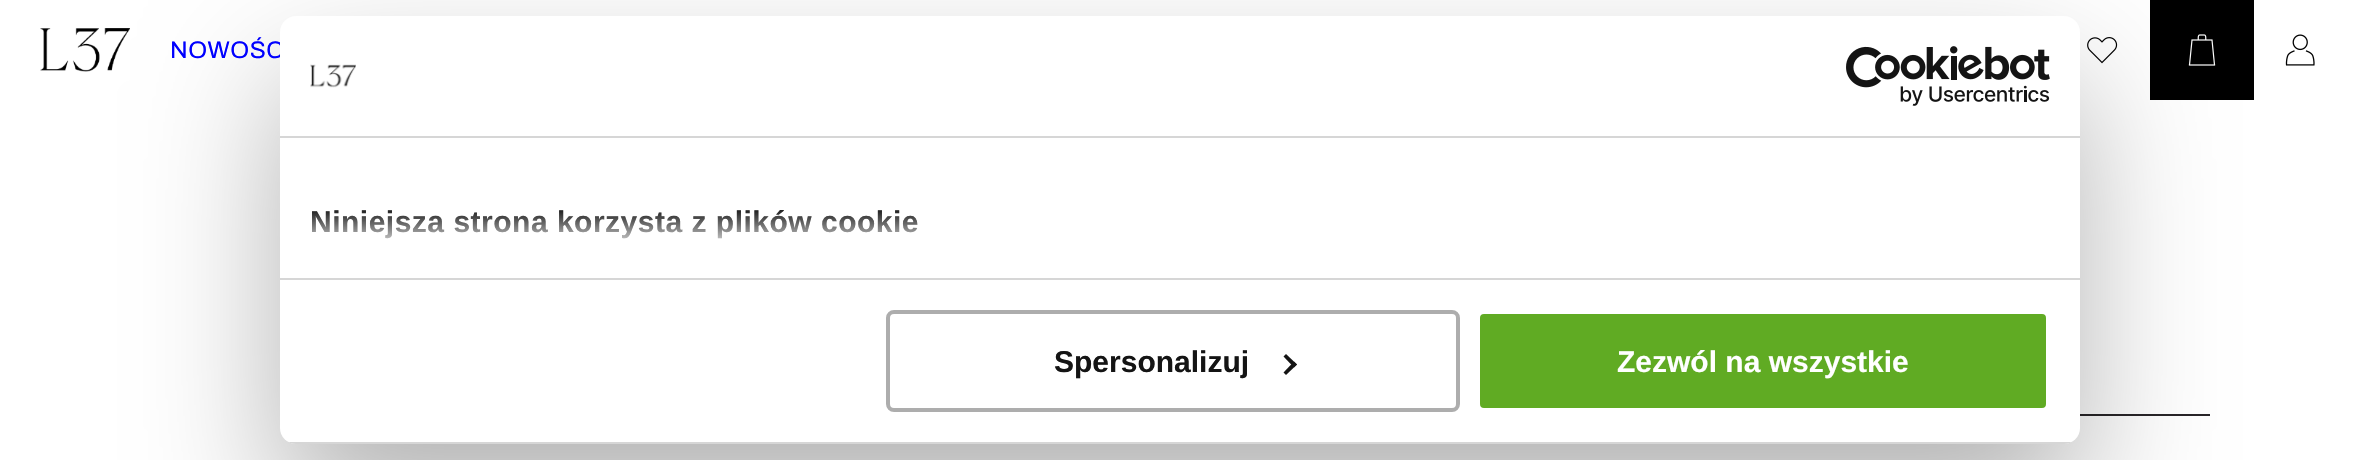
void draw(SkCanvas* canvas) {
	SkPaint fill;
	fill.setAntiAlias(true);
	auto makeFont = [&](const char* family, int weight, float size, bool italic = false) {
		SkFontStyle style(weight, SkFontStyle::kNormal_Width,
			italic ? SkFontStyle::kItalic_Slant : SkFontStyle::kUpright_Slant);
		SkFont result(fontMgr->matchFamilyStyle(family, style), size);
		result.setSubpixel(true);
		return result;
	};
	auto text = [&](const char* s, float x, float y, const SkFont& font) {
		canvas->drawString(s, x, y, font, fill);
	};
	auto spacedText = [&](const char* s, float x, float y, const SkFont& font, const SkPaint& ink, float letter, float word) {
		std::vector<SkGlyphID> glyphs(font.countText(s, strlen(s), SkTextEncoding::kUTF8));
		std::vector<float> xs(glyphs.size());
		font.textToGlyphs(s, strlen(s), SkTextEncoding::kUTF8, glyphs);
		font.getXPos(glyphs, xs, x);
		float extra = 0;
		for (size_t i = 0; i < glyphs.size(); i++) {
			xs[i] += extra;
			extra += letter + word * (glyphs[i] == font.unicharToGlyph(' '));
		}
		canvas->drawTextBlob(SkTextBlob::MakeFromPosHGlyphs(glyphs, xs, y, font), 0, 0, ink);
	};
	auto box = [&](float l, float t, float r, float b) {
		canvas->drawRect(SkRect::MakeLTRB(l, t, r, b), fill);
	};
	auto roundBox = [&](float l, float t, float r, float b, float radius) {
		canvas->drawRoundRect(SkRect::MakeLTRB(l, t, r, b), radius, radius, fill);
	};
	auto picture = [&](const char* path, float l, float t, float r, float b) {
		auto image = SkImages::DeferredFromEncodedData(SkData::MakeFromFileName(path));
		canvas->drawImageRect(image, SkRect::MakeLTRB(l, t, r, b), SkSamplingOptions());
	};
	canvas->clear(0xFFFFFFFF);
	picture("image0.png", 40, 28, 130, 72);
	picture("image1.png", 2087, 37, 2118, 64);
	fill.setColor(0xFF000000);
	box(2150, 0, 2254, 100);
	picture("image2.png", 2188, 34, 2216, 66);
	picture("image3.png", 2285, 34, 2315, 66);
	fill.setColor(0xFF282528);
	box(2080, 414, 2210, 416);
	fill.setColor(0x4D000000);
	fill.setMaskFilter(SkMaskFilter::MakeBlur(kNormal_SkBlurStyle, 68));
	canvas->drawRoundRect(SkRect::MakeLTRB(280, 80, 2080, 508), 16, 16, fill);
	fill.setMaskFilter(nullptr);
	auto font1 = makeFont("Archivo", 400, 24);
	fill.setColor(0xFF0000FF);
	spacedText("NOWOŚC", 170, 58, font1, fill, 0.5f, 0);
	fill.setColor(0xFFFFFFFF);
	roundBox(280, 16, 2080, 444, 16);
	fill.setColor(0xFFD6D6D6);
	box(280, 136, 2080, 138);
	picture("image4.png", 310, 64, 356, 88);
	picture("image5.png", 1846, 46, 2050, 106);
	box(280, 278, 2080, 280);
	auto font2 = makeFont("Liberation Sans", 700, 30);
	fill.setColor(0xFF141414);
	spacedText("Niniejsza strona korzysta z plików cookie", 310, 232, font2, fill, 0.5f, 0);
	{
		const SkColor colors[] = {0xFFFFFFFF, 0xCCFFFFFF, 0x00FFFFFF};
		const float stops[] = {0, 0.5f, 1};
		const SkPoint ends[] = {{1167, 278}, {1167, 208}};
		fill.setShader(SkGradientShader::MakeLinear(ends, colors, stops, 3, SkTileMode::kClamp));
		fill.setAlpha(255);
	}
	box(312, 210, 918, 239);
	canvas->save();
	canvas->clipPath(SkPathBuilder().moveTo(296, 16).lineTo(2064, 16).cubicTo(2073, 16, 2080, 23, 2080, 32).lineTo(2080, 428).cubicTo(2080, 437, 2073, 444, 2064, 444).lineTo(296, 444).cubicTo(287, 444, 280, 437, 280, 428).lineTo(280, 32).cubicTo(280, 23, 287, 16, 296, 16).close().detach(), true);
	fill.setShader(nullptr);
	fill.setColor(0xFFD6D6D6);
	box(280, 442, 2080, 444);
	canvas->restore();
	fill.setStyle(SkPaint::kStroke_Style);
	fill.setStrokeWidth(4);
	fill.setColor(0xFFADADAD);
	canvas->drawRoundRect(SkRect::MakeLTRB(888, 312, 1458, 410), 6, 6, fill);
	fill.setStyle(SkPaint::kFill_Style);
	fill.setColor(0xFF141414);
	text("Spersonalizuj", 1054, 372, font2);
	canvas->drawPath(SkPathBuilder().moveTo(1286, 354).lineTo(1297, 364.5f).lineTo(1294, 367.5f).lineTo(1283.5f, 356.5f).close().detach(), fill);
	canvas->drawPath(SkPathBuilder().moveTo(1294, 361.5f).lineTo(1297, 364.5f).lineTo(1286, 375).lineTo(1283.5f, 372.5f).close().detach(), fill);
	fill.setColor(0xFF60AB23);
	canvas->drawRoundRect(SkRect::MakeLTRB(1478, 312, 2048, 410), 6, 6, fill);
	fill.setStyle(SkPaint::kStroke_Style);
	fill.setColor(0xFFFFFFFF);
	canvas->drawRoundRect(SkRect::MakeLTRB(1478, 312, 2048, 410), 6, 6, fill);
	fill.setStyle(SkPaint::kFill_Style);
	text("Zezwól na wszystkie", 1617, 372, font2);
}
